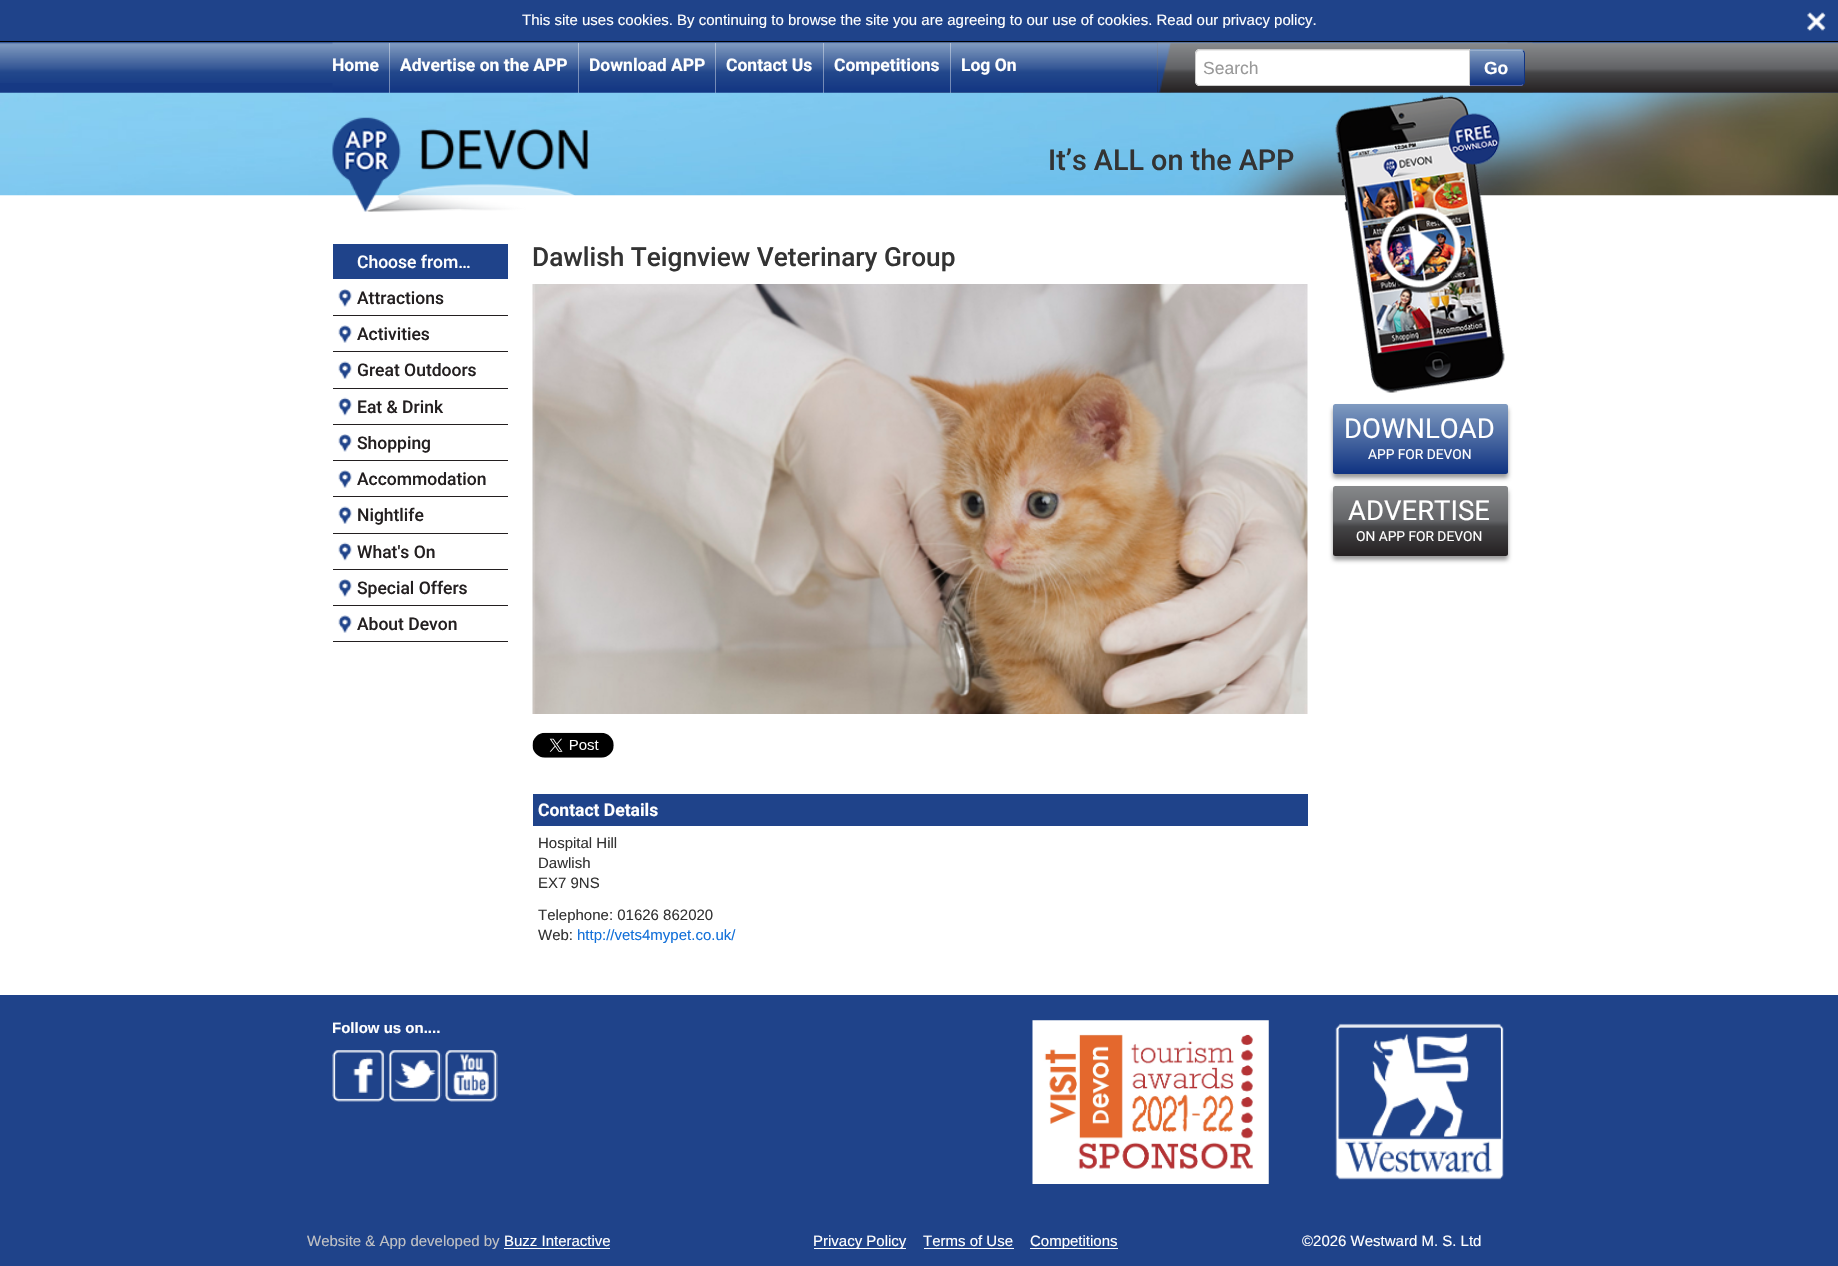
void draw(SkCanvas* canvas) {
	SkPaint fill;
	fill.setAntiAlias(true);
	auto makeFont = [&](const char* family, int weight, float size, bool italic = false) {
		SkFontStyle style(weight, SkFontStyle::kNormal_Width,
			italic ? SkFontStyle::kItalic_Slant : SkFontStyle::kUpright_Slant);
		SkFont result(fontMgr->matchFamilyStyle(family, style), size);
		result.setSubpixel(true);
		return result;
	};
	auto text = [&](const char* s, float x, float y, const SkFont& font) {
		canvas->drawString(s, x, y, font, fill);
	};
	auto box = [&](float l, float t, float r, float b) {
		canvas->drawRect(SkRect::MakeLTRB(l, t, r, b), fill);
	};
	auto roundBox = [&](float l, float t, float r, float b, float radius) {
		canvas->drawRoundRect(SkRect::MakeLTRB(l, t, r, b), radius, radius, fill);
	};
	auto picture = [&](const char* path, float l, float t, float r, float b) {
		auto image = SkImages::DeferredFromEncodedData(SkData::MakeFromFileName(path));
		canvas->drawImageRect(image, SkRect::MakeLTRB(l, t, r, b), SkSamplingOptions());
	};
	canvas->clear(0xFF1F438A);
	fill.setColor(0xFF000000);
	box(0, 41, 1838, 42);
	picture("image0.png", 1807, 12, 1826, 31);
	fill.setColor(0xFF163984);
	box(0, 43, 1838, 93);
	picture("image2.png", 0, 42, 1838, 83);
	picture("image1.png", 920, 42, 1838, 93);
	picture("image3.png", 332, 42, 1508, 93);
	fill.setColor(0x66FFFFFF);
	box(389, 43, 390, 93);
	box(578, 43, 579, 93);
	box(715, 43, 716, 93);
	box(823, 43, 824, 93);
	box(950, 43, 951, 93);
	picture("image4.png", 1157, 42, 1533, 93);
	picture("image5.png", 1157, 43, 1171, 93);
	canvas->save();
	canvas->clipPath(SkPathBuilder().moveTo(1469, 49).lineTo(1520, 49).cubicTo(1523, 49, 1525, 51, 1525, 54).lineTo(1525, 81).cubicTo(1525, 84, 1523, 86, 1520, 86).lineTo(1469, 86).close().detach(), true);
	{
		const SkColor colors[] = {0xFF809BC0, 0xFF113482};
		const float stops[] = {0, 1};
		const SkPoint ends[] = {{1497, 50}, {1497, 85}};
		fill.setShader(SkGradientShader::MakeLinear(ends, colors, stops, 2, SkTileMode::kClamp));
		fill.setAlpha(255);
	}
	box(1470, 50, 1525, 85);
	canvas->restore();
	fill.setShader(nullptr);
	fill.setColor(0x33FFFFFF);
	canvas->drawPath(SkPathBuilder().moveTo(1470, 51).lineTo(1520, 51).cubicTo(1522, 51, 1524, 53, 1524, 55).lineTo(1524, 54).cubicTo(1524, 52, 1522, 50, 1520, 50).lineTo(1470, 50).close().detach(), fill);
	fill.setColor(0xFF809BC0);
	canvas->drawPath(SkPathBuilder().moveTo(1469, 49).lineTo(1470, 50).lineTo(1520, 50).cubicTo(1521, 50, 1522, 50, 1523, 51).lineTo(1523, 50).cubicTo(1523, 49, 1521, 49, 1520, 49).close().detach(), fill);
	fill.setColor(0xFF113482);
	canvas->drawPath(SkPathBuilder().moveTo(1523.5f, 50.5f).cubicTo(1524.5f, 51, 1525, 52.5f, 1525, 54).lineTo(1525, 81).cubicTo(1525, 82.5f, 1524.5f, 84, 1523.5f, 84.5f).lineTo(1522.5f, 84).cubicTo(1523.5f, 83, 1524, 82, 1524, 81).lineTo(1524, 54).cubicTo(1524, 53, 1523.5f, 52, 1522.5f, 51).close().detach(), fill);
	fill.setColor(0xFF5966A6);
	canvas->drawPath(SkPathBuilder().moveTo(1523, 85).cubicTo(1523, 86, 1521, 86, 1520, 86).lineTo(1469, 86).lineTo(1470, 85).lineTo(1520, 85).cubicTo(1521, 85, 1522, 85, 1523, 84).close().detach(), fill);
	fill.setColor(0xFFFFFFFF);
	canvas->drawPath(SkPathBuilder().moveTo(1200, 49).lineTo(1470, 49).lineTo(1470, 86).lineTo(1200, 86).cubicTo(1197, 86, 1195, 84, 1195, 81).lineTo(1195, 54).cubicTo(1195, 51, 1197, 49, 1200, 49).close().detach(), fill);
	fill.setColor(0xFFECECEC);
	canvas->drawPath(SkPathBuilder().moveTo(1200, 51).lineTo(1469, 51).lineTo(1469, 50).lineTo(1200, 50).cubicTo(1197, 50, 1196, 52, 1196, 55).cubicTo(1196, 53, 1198, 51, 1200, 51).close().detach(), fill);
	fill.setStyle(SkPaint::kStroke_Style);
	fill.setStrokeWidth(1);
	fill.setColor(0xFFCCCCCC);
	canvas->drawPath(SkPathBuilder().moveTo(1200, 49.5f).lineTo(1469.5f, 49.5f).lineTo(1469.5f, 85.5f).lineTo(1200, 85.5f).cubicTo(1197.5f, 85.5f, 1195.5f, 83.5f, 1195.5f, 81).lineTo(1195.5f, 54).cubicTo(1195.5f, 51.5f, 1197.5f, 49.5f, 1200, 49.5f).close().detach(), fill);
	fill.setStyle(SkPaint::kFill_Style);
	fill.setColor(0xFFFFFFFF);
	box(0, 195, 1838, 995);
	picture("image6.png", 0, 92, 1838, 196);
	picture("image7.png", 332, 117, 588, 212);
	fill.setColor(0xFF1F438A);
	box(333, 244, 508, 279);
	picture("image8.png", 338, 289, 352, 307);
	fill.setColor(0xFF231F20);
	box(333, 315, 508, 316);
	picture("image9.png", 338, 325, 352, 343);
	box(333, 351, 508, 352);
	picture("image10.png", 338, 361, 352, 379);
	box(333, 388, 508, 389);
	picture("image11.png", 338, 397, 352, 416);
	box(333, 424, 508, 425);
	picture("image12.png", 338, 434, 352, 452);
	box(333, 460, 508, 461);
	picture("image9.png", 338, 470, 352, 488);
	box(333, 496, 508, 497);
	picture("image10.png", 338, 506, 352, 524);
	box(333, 533, 508, 534);
	picture("image11.png", 338, 542, 352, 561);
	box(333, 569, 508, 570);
	picture("image13.png", 338, 579, 352, 597);
	box(333, 605, 508, 606);
	picture("image9.png", 338, 615, 352, 633);
	box(333, 641, 508, 642);
	picture("image14.png", 532, 284, 1308, 714);
	picture("image15.png", 532, 732, 614, 758);
	fill.setColor(0xFF1F438A);
	box(533, 794, 1308, 826);
	picture("image16.png", 1335, 94, 1505, 393);
	fill.setColor(0xFF999999);
	fill.setMaskFilter(SkMaskFilter::MakeBlur(kNormal_SkBlurStyle, 2));
	canvas->drawRoundRect(SkRect::MakeLTRB(1333, 408, 1508, 478), 2.5f, 2.5f, fill);
	fill.setMaskFilter(nullptr);
	{
		const SkColor colors[] = {0xFF809BC0, 0xFF113482};
		const float stops[] = {0, 0.98f};
		const SkPoint ends[] = {{1420, 404}, {1420, 474}};
		fill.setShader(SkGradientShader::MakeLinear(ends, colors, stops, 2, SkTileMode::kClamp));
		fill.setAlpha(255);
	}
	roundBox(1333, 404, 1508, 474, 2.5f);
	fill.setShader(nullptr);
	fill.setColor(0xFF999999);
	fill.setMaskFilter(SkMaskFilter::MakeBlur(kNormal_SkBlurStyle, 2));
	canvas->drawRoundRect(SkRect::MakeLTRB(1333, 490, 1508, 560), 2.5f, 2.5f, fill);
	fill.setMaskFilter(nullptr);
	{
		const SkColor colors[] = {0xFF87898B, 0xFF626366, 0xFF454547, 0xFF231F20};
		const float stops[] = {0, 0.5f, 0.58f, 1};
		const SkPoint ends[] = {{1420, 486}, {1420, 556}};
		fill.setShader(SkGradientShader::MakeLinear(ends, colors, stops, 4, SkTileMode::kClamp));
		fill.setAlpha(255);
	}
	roundBox(1333, 486, 1508, 556, 2.5f);
	picture("image17.png", 332, 1050, 385, 1102);
	picture("image18.png", 388, 1050, 442, 1102);
	picture("image19.png", 445, 1050, 498, 1102);
	picture("image20.png", 1032, 1020, 1269, 1184);
	picture("image21.png", 1335, 1023, 1504, 1180);
	fill.setShader(nullptr);
	fill.setColor(0xFFFFFFFF);
	box(504, 1248, 610, 1249);
	box(814, 1248, 906, 1249);
	box(924, 1248, 1014, 1249);
	box(1030, 1248, 1118, 1249);
	auto font1 = makeFont("Liberation Sans", 400, 15);
	text("This site uses cookies. By continuing to browse the site you are agreeing to our use of cookies. Read our privacy policy.", 522, 25, font1);
	auto font2 = makeFont("Roboto", 700, 17.5f);
	text("Home", 332, 71, font2);
	text("Advertise on the APP", 400, 71, font2);
	text("Download APP", 589, 71, font2);
	text("Contact Us", 726, 71, font2);
	text("Competitions", 834, 71, font2);
	text("Log On", 961, 71, font2);
	auto font3 = makeFont("Liberation Sans", 400, 17.5f);
	fill.setColor(0xFF999999);
	text("Search", 1203, 74, font3);
	auto font4 = makeFont("Liberation Sans", 700, 17.5f);
	fill.setColor(0xFFFFFFFF);
	text("Go", 1484, 74, font4);
	auto font5 = makeFont("Roboto", 500, 17.5f);
	text("Choose from…", 357, 268, font5);
	fill.setColor(0xFF231F20);
	text("Attractions", 357, 304, font5);
	text("Activities", 357, 340, font5);
	text("Great Outdoors", 357, 376, font5);
	text("Eat & Drink", 357, 413, font5);
	text("Shopping", 357, 449, font5);
	text("Accommodation", 357, 485, font5);
	text("Nightlife", 357, 521, font5);
	text("What's On", 357, 558, font5);
	text("Special Offers", 357, 594, font5);
	text("About Devon", 357, 630, font5);
	auto font6 = makeFont("Roboto", 500, 26.25f);
	fill.setColor(0xFF333333);
	text("Dawlish Teignview Veterinary Group", 532, 266, font6);
	fill.setColor(0xFFFFFFFF);
	text("Contact Details", 538, 816, font2);
	fill.setColor(0xFF333333);
	text("Hospital Hill", 538, 848, font1);
	text("Dawlish", 538, 868, font1);
	text("EX7 9NS", 538, 888, font1);
	text("Telephone: 01626 862020", 538, 920, font1);
	text("Web:", 538, 940, font1);
	fill.setColor(0xFF1270D9);
	text("http://vets4mypet.co.uk/", 577, 940, font1);
	auto font7 = makeFont("Roboto", 500, 28.75f);
	fill.setColor(0xFF333333);
	text("It’s ALL on the APP", 1048, 170, font7);
	auto font8 = makeFont("Roboto", 400, 27.5f);
	fill.setColor(0xFFFFFFFF);
	text("DOWNLOAD", 1344, 438, font8);
	auto font9 = makeFont("Roboto", 400, 13.75f);
	text("APP FOR DEVON", 1368, 459, font9);
	text("ADVERTISE", 1348, 520, font8);
	text("ON APP FOR DEVON", 1356, 541, font9);
	auto font10 = makeFont("Liberation Sans", 700, 15);
	text("Follow us on....", 332, 1033, font10);
	fill.setColor(0xFFC0C1C4);
	text("Website & App developed by", 307, 1246, font1);
	fill.setColor(0xFFFFFFFF);
	text("Buzz Interactive", 504, 1246, font1);
	text("Privacy Policy", 813, 1246, font1);
	text("Terms of Use", 923, 1246, font1);
	text("Competitions", 1030, 1246, font1);
	text("©2026 Westward M. S. Ltd", 1302, 1246, font1);
}
